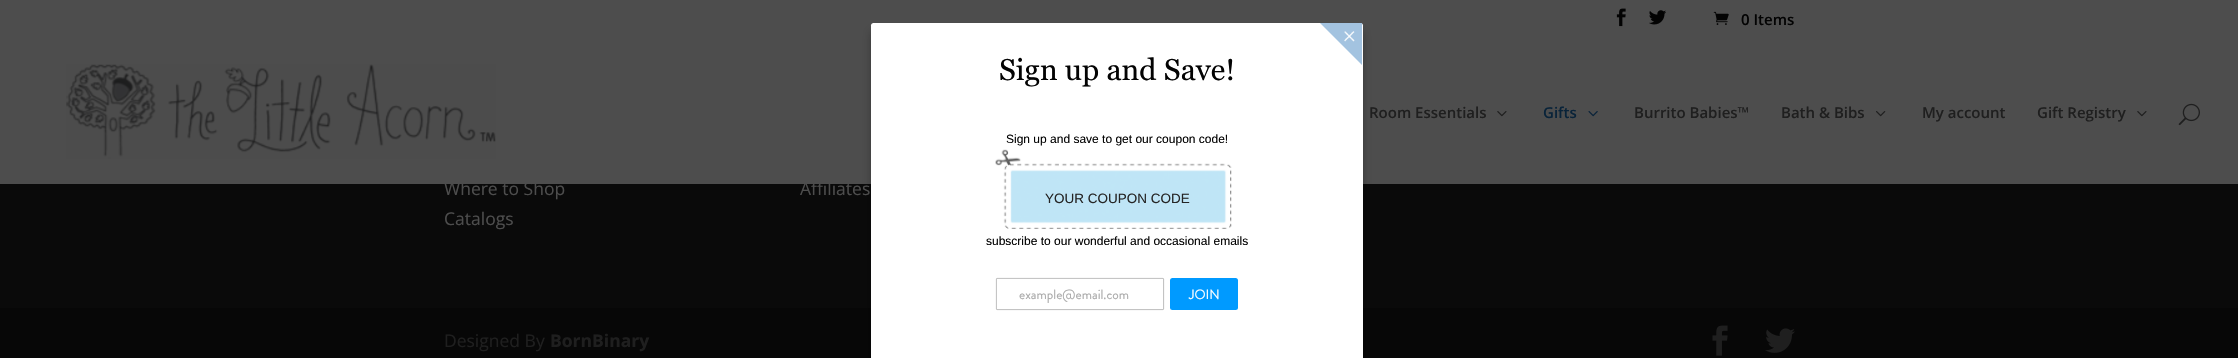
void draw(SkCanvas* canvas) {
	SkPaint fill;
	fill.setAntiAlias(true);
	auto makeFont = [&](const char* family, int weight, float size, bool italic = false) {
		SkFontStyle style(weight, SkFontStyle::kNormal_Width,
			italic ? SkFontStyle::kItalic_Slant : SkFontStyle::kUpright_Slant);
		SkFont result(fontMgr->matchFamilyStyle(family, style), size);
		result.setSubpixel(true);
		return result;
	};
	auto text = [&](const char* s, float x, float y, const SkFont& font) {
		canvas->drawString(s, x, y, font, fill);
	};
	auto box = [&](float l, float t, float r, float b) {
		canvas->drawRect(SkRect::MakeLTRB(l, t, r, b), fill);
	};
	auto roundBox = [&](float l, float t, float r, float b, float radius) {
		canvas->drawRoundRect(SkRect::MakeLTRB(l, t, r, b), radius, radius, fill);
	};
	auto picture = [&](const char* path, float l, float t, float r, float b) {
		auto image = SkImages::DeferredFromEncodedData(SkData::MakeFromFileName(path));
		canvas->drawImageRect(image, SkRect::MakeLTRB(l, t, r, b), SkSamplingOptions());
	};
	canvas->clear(0xFF0A0A0A);
	fill.setColor(0xFF4D4D4D);
	box(0, 0, 2238, 184);
	picture("image0.png", 1616, 8, 1626, 27);
	picture("image1.png", 1649, 10, 1666, 25);
	picture("image2.png", 1713, 11, 1729, 25);
	picture("image3.png", 66, 64, 496, 159);
	picture("image4.png", 1497, 111, 1507, 117);
	picture("image5.png", 1588, 111, 1598, 117);
	picture("image6.png", 1876, 111, 1886, 117);
	picture("image4.png", 2137, 111, 2147, 117);
	picture("image7.png", 2178, 103, 2200, 126);
	fill.setColor(0xFF070707);
	box(0, 308, 2238, 358);
	picture("image8.png", 1712, 325, 1728, 356);
	picture("image9.png", 1765, 328, 1795, 353);
	fill.setColor(0x45000000);
	fill.setMaskFilter(SkMaskFilter::MakeBlur(kNormal_SkBlurStyle, 4.5f));
	canvas->drawRoundRect(SkRect::MakeLTRB(871, 31, 1363, 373), 2.5f, 2.5f, fill);
	fill.setMaskFilter(nullptr);
	fill.setColor(0xFFFFFFFF);
	canvas->drawPath(SkPathBuilder().moveTo(873.5f, 23).lineTo(1360.5f, 23).cubicTo(1362, 23, 1363, 24, 1363, 25.5f).lineTo(1363, 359).lineTo(871, 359).lineTo(871, 25.5f).cubicTo(871, 24, 872, 23, 873.5f, 23).close().detach(), fill);
	fill.setColor(0xFFA3C3E0);
	canvas->drawPath(SkPathBuilder().moveTo(1320, 23).lineTo(1362, 23).lineTo(1362, 65).close().detach(), fill);
	picture("image10.png", 1344, 31, 1355, 42);
	picture("image11.png", 995, 149, 1232, 229);
	fill.setStyle(SkPaint::kStroke_Style);
	fill.setStrokeWidth(0.8f);
	fill.setColor(0xFFACACAC);
	canvas->drawRoundRect(SkRect::MakeLTRB(996.4f, 278.4f, 1163.6f, 309.6f), 0.6f, 0.6f, fill);
	fill.setStyle(SkPaint::kFill_Style);
	fill.setColor(0xFF009AFF);
	roundBox(1170, 278, 1238, 310, 2.5f);
	auto font1 = makeFont("Open Sans", 600, 15);
	fill.setColor(0xFF030303);
	text("0 Items", 1741, 25, font1);
	fill.setColor(0xFF1F1F1F);
	text("Room Essentials", 1369, 118, font1);
	fill.setColor(0xFF092339);
	text("Gifts", 1543, 118, font1);
	fill.setColor(0xFF1F1F1F);
	text("Burrito Babies™", 1634, 118, font1);
	text("Bath & Bibs", 1781, 118, font1);
	text("My account", 1922, 118, font1);
	text("Gift Registry", 2037, 118, font1);
	auto font2 = makeFont("Open Sans", 400, 17.5f);
	fill.setColor(0xFF4D4D4D);
	text("Where to Shop", 444, 195, font2);
	text("Catalogs", 444, 225, font2);
	text("Affiliates", 800, 195, font2);
	fill.setColor(0xFF1F1F1F);
	text("Designed By", 444, 347, font2);
	auto font3 = makeFont("Open Sans", 700, 17.5f);
	text("BornBinary", 550, 347, font3);
	auto font4 = makeFont("Georgia", 400, 30);
	fill.setColor(0xFF030303);
	text("Sign up and Save!", 999, 80, font4);
	auto font5 = makeFont("Liberation Sans", 400, 12);
	text("Sign up and save to get our coupon code!", 1006, 143, font5);
	auto font6 = makeFont("Liberation Sans", 400, 13.5f);
	fill.setColor(0xFF252525);
	text("YOUR COUPON CODE", 1045, 203, font6);
	fill.setColor(0xFF030303);
	text("subscribe to our wonderful and occasional emails", 986, 245, font5);
	auto font7 = makeFont("Brandon Grotesque", 400, 13.5f);
	fill.setColor(0xFFA9A9A9);
	text("example@email.com", 1019, 299, font7);
	fill.setColor(0xFFFFFFFF);
	text("JOIN", 1189, 299, font7);
}
